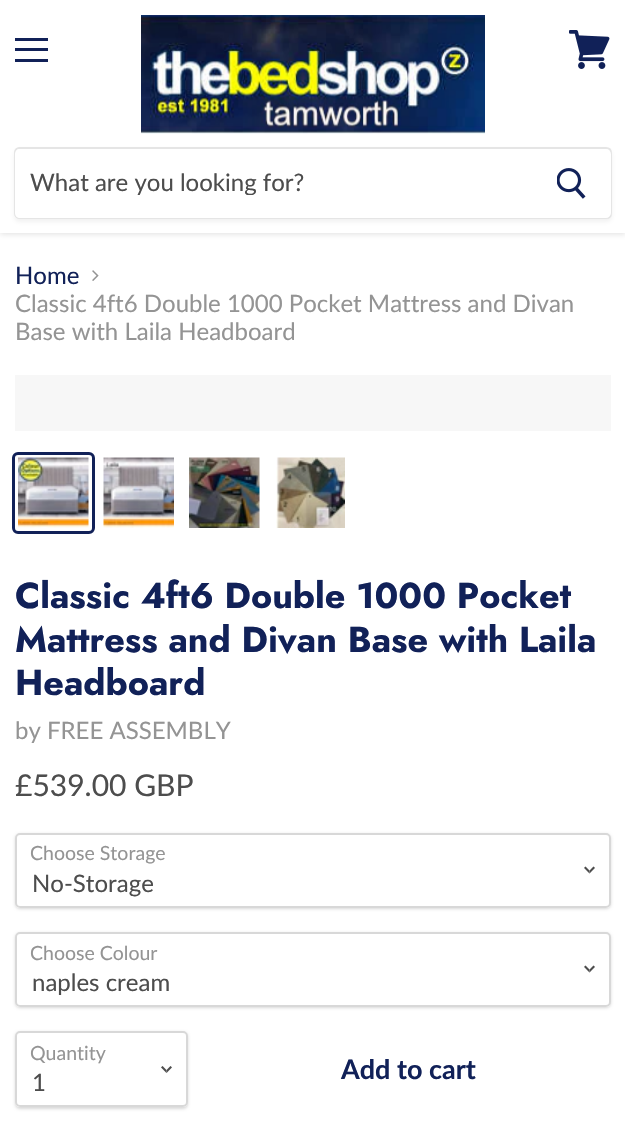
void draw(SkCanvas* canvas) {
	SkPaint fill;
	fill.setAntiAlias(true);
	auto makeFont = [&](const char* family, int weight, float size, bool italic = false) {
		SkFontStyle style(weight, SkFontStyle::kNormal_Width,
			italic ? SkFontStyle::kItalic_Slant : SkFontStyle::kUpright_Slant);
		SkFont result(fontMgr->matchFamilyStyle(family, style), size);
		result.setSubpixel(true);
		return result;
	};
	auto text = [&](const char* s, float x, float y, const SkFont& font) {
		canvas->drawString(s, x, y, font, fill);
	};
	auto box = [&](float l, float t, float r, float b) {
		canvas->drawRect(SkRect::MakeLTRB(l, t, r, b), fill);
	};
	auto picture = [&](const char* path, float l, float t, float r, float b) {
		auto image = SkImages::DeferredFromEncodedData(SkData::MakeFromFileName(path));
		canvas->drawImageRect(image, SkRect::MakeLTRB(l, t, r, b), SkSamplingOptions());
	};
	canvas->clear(0xFFFFFFFF);
	fill.setColor(0x407F7F7F);
	fill.setMaskFilter(SkMaskFilter::MakeBlur(kNormal_SkBlurStyle, 3));
	canvas->drawRect(SkRect::MakeLTRB(0, 2, 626, 234), fill);
	fill.setMaskFilter(nullptr);
	fill.setColor(0xFFFFFFFF);
	box(0, 0, 625, 233);
	fill.setColor(0xFF112158);
	box(15, 38, 48, 41);
	box(15, 48, 48, 51);
	box(15, 59, 48, 62);
	picture("image0.png", 569, 30, 610, 69);
	picture("image1.png", 141, 15, 485, 134);
	canvas->save();
	canvas->clipPath(SkPathBuilder(SkPathFillType::kEvenOdd).moveTo(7, 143).lineTo(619, 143).lineTo(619, 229).lineTo(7, 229).close().moveTo(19, 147).lineTo(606, 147).cubicTo(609.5f, 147, 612, 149.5f, 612, 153).lineTo(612, 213).cubicTo(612, 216.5f, 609.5f, 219, 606, 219).lineTo(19, 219).cubicTo(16, 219, 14, 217, 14, 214).lineTo(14, 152).cubicTo(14, 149, 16, 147, 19, 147).close().detach(), true);
	fill.setColor(0x1C7F7F7F);
	fill.setMaskFilter(SkMaskFilter::MakeBlur(kNormal_SkBlurStyle, 2));
	canvas->drawRoundRect(SkRect::MakeLTRB(14, 150, 612, 222), 6, 6, fill);
	fill.setMaskFilter(nullptr);
	canvas->restore();
	fill.setStyle(SkPaint::kStroke_Style);
	fill.setStrokeWidth(2);
	fill.setColor(0x337F7F7F);
	canvas->drawPath(SkPathBuilder().moveTo(19, 148).lineTo(606, 148).cubicTo(609, 148, 611, 150, 611, 153).lineTo(611, 213).cubicTo(611, 216, 609, 218, 606, 218).lineTo(19, 218).cubicTo(17, 218, 15, 216, 15, 214).lineTo(15, 152).cubicTo(15, 150, 17, 148, 19, 148).close().detach(), fill);
	fill.setStyle(SkPaint::kFill_Style);
	fill.setColor(0xFFFFFFFF);
	canvas->drawPath(SkPathBuilder().moveTo(20, 149).lineTo(531, 149).lineTo(531, 218).lineTo(20, 218).cubicTo(17, 218, 15, 216, 15, 213).lineTo(15, 154).cubicTo(15, 151, 17, 149, 20, 149).close().detach(), fill);
	canvas->drawPath(SkPathBuilder().moveTo(532, 150).lineTo(606, 150).cubicTo(608, 150, 610, 152, 610, 154).lineTo(610, 213).cubicTo(610, 215, 608, 217, 606, 217).lineTo(532, 217).close().detach(), fill);
	fill.setStyle(SkPaint::kStroke_Style);
	canvas->drawPath(SkPathBuilder().moveTo(532, 150).lineTo(606, 150).cubicTo(608, 150, 610, 152, 610, 154).lineTo(610, 213).cubicTo(610, 215, 608, 217, 606, 217).lineTo(532, 217).close().detach(), fill);
	picture("image2.png", 557, 168, 586, 199);
	picture("image3.png", 92, 270, 99, 281);
	fill.setStyle(SkPaint::kFill_Style);
	fill.setColor(0xFFF7F7F7);
	box(15, 375, 611, 431);
	fill.setStyle(SkPaint::kStroke_Style);
	fill.setStrokeWidth(3);
	fill.setColor(0xFF112158);
	canvas->drawRoundRect(SkRect::MakeLTRB(13.5f, 453.5f, 93.5f, 532.5f), 4.5f, 4.5f, fill);
	picture("image4.png", 18, 457, 89, 528);
	picture("image5.png", 103, 457, 174, 528);
	picture("image6.png", 189, 457, 260, 528);
	picture("image7.png", 276, 457, 345, 528);
	canvas->save();
	canvas->clipPath(SkPathBuilder(SkPathFillType::kEvenOdd).moveTo(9, 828).lineTo(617, 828).lineTo(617, 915).lineTo(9, 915).close().moveTo(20, 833).lineTo(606, 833).cubicTo(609, 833, 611, 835, 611, 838).lineTo(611, 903).cubicTo(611, 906, 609, 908, 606, 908).lineTo(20, 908).cubicTo(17, 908, 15, 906, 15, 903).lineTo(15, 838).cubicTo(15, 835, 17, 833, 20, 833).close().detach(), true);
	fill.setStyle(SkPaint::kFill_Style);
	fill.setColor(0x26000000);
	fill.setMaskFilter(SkMaskFilter::MakeBlur(kNormal_SkBlurStyle, 1.5f));
	canvas->drawRoundRect(SkRect::MakeLTRB(15, 834, 611, 909), 5, 5, fill);
	fill.setMaskFilter(nullptr);
	canvas->restore();
	fill.setStyle(SkPaint::kStroke_Style);
	fill.setStrokeWidth(2);
	fill.setColor(0x4D7F7F7F);
	canvas->drawRoundRect(SkRect::MakeLTRB(16, 834, 610, 907), 4, 4, fill);
	picture("image8.png", 584, 866, 595, 874);
	canvas->save();
	canvas->clipPath(SkPathBuilder(SkPathFillType::kEvenOdd).moveTo(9, 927).lineTo(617, 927).lineTo(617, 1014).lineTo(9, 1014).close().moveTo(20, 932).lineTo(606, 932).cubicTo(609, 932, 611, 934, 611, 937).lineTo(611, 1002).cubicTo(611, 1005, 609, 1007, 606, 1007).lineTo(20, 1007).cubicTo(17, 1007, 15, 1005, 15, 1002).lineTo(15, 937).cubicTo(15, 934, 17, 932, 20, 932).close().detach(), true);
	fill.setStyle(SkPaint::kFill_Style);
	fill.setColor(0x26000000);
	fill.setMaskFilter(SkMaskFilter::MakeBlur(kNormal_SkBlurStyle, 1.5f));
	canvas->drawRoundRect(SkRect::MakeLTRB(15, 933, 611, 1008), 5, 5, fill);
	fill.setMaskFilter(nullptr);
	canvas->restore();
	fill.setStyle(SkPaint::kStroke_Style);
	fill.setColor(0x4D7F7F7F);
	canvas->drawRoundRect(SkRect::MakeLTRB(16, 933, 610, 1006), 4, 4, fill);
	picture("image8.png", 584, 965, 595, 973);
	canvas->save();
	canvas->clipPath(SkPathBuilder(SkPathFillType::kEvenOdd).moveTo(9, 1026).lineTo(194, 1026).lineTo(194, 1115).lineTo(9, 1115).close().moveTo(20, 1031).lineTo(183, 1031).cubicTo(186, 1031, 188, 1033, 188, 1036).lineTo(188, 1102).cubicTo(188, 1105, 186, 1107, 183, 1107).lineTo(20, 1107).cubicTo(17, 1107, 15, 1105, 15, 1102).lineTo(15, 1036).cubicTo(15, 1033, 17, 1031, 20, 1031).close().detach(), true);
	fill.setStyle(SkPaint::kFill_Style);
	fill.setColor(0x26000000);
	fill.setMaskFilter(SkMaskFilter::MakeBlur(kNormal_SkBlurStyle, 1.5f));
	canvas->drawRoundRect(SkRect::MakeLTRB(15, 1032, 188, 1109), 5, 5, fill);
	fill.setMaskFilter(nullptr);
	canvas->restore();
	fill.setStyle(SkPaint::kStroke_Style);
	fill.setColor(0x4D7F7F7F);
	canvas->drawRoundRect(SkRect::MakeLTRB(16, 1032, 187, 1106), 4, 4, fill);
	picture("image9.png", 161, 1066, 172, 1073);
	canvas->save();
	canvas->clipRect(SkRect::MakeLTRB(30, 167, 516, 195));
	auto font1 = makeFont("Lato", 400, 24);
	fill.setStyle(SkPaint::kFill_Style);
	fill.setColor(0xFF4D4D4D);
	text("What are you looking for?", 30, 191, font1);
	canvas->restore();
	fill.setColor(0xFF112158);
	text("Home", 15, 284, font1);
	fill.setColor(0xFF949494);
	text("Classic 4ft6 Double 1000 Pocket Mattress and Divan", 15, 312, font1);
	text("Base with Laila Headboard", 15, 340, font1);
	auto font2 = makeFont("Jost", 700, 36);
	fill.setColor(0xFF112158);
	text("Classic 4ft6 Double 1000 Pocket", 15, 608, font2);
	text("Mattress and Divan Base with Laila", 15, 652, font2);
	text("Headboard", 15, 695, font2);
	fill.setColor(0xFF949494);
	text("by FREE ASSEMBLY", 15, 739, font1);
	auto font3 = makeFont("Lato", 400, 30);
	fill.setColor(0xFF4D4D4D);
	text("£539.00 GBP", 15, 796, font3);
	auto font4 = makeFont("Lato", 400, 19.5f);
	fill.setColor(0xFF949494);
	text("Choose Storage", 30, 860, font4);
	fill.setColor(0xFF4D4D4D);
	text("No-Storage", 32, 892, font1);
	fill.setColor(0xFF949494);
	text("Choose Colour", 30, 960, font4);
	fill.setColor(0xFF4D4D4D);
	text("naples cream", 32, 991, font1);
	fill.setColor(0xFF949494);
	text("Quantity", 30, 1060, font4);
	fill.setColor(0xFF4D4D4D);
	text("1", 32, 1091, font1);
	auto font5 = makeFont("Lato", 700, 27);
	fill.setColor(0xFF112158);
	text("Add to cart", 341, 1079, font5);
}
